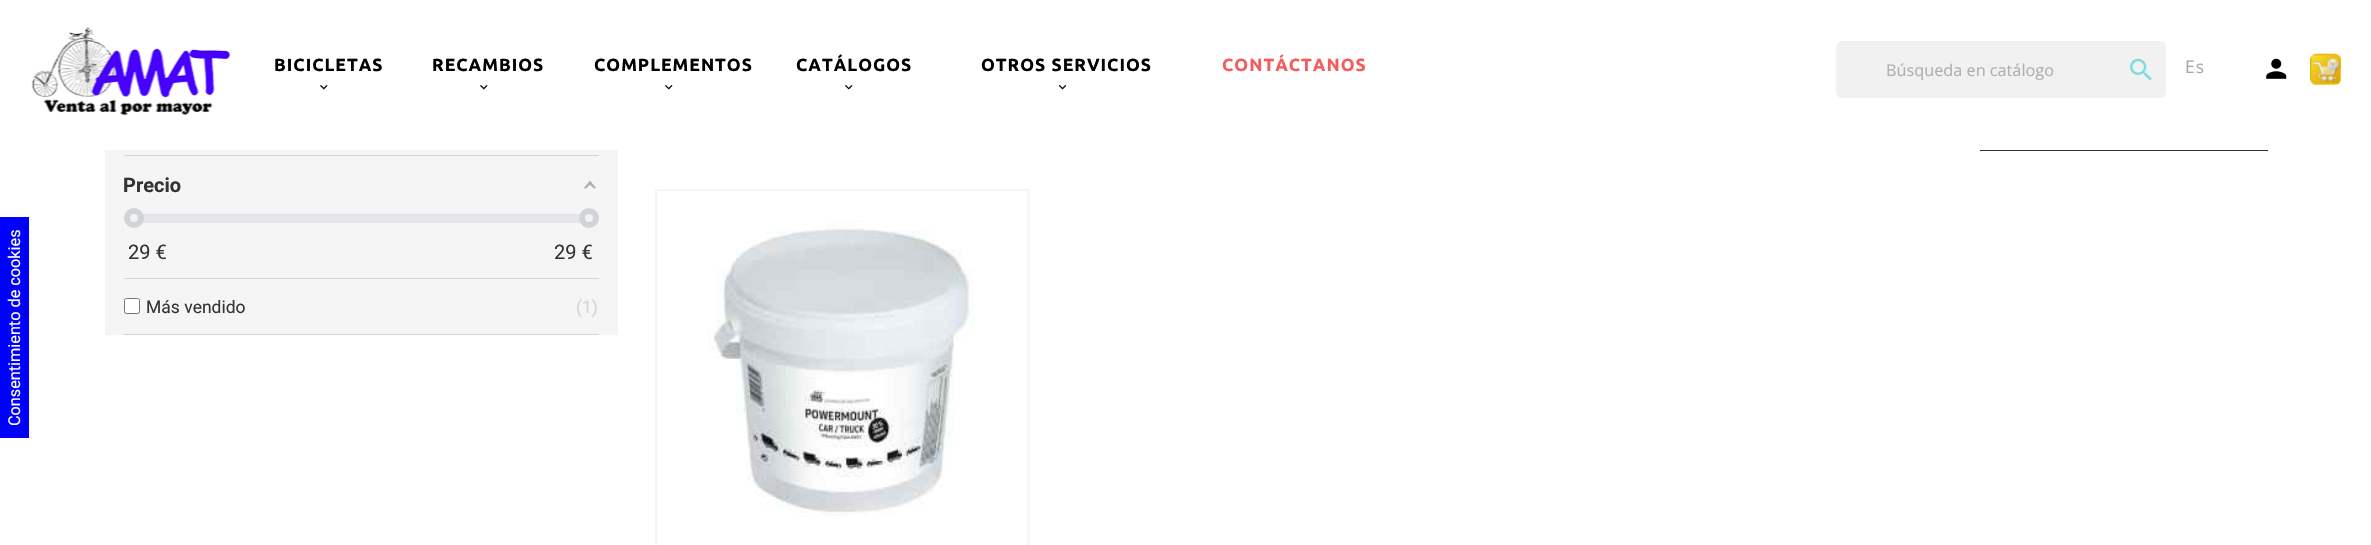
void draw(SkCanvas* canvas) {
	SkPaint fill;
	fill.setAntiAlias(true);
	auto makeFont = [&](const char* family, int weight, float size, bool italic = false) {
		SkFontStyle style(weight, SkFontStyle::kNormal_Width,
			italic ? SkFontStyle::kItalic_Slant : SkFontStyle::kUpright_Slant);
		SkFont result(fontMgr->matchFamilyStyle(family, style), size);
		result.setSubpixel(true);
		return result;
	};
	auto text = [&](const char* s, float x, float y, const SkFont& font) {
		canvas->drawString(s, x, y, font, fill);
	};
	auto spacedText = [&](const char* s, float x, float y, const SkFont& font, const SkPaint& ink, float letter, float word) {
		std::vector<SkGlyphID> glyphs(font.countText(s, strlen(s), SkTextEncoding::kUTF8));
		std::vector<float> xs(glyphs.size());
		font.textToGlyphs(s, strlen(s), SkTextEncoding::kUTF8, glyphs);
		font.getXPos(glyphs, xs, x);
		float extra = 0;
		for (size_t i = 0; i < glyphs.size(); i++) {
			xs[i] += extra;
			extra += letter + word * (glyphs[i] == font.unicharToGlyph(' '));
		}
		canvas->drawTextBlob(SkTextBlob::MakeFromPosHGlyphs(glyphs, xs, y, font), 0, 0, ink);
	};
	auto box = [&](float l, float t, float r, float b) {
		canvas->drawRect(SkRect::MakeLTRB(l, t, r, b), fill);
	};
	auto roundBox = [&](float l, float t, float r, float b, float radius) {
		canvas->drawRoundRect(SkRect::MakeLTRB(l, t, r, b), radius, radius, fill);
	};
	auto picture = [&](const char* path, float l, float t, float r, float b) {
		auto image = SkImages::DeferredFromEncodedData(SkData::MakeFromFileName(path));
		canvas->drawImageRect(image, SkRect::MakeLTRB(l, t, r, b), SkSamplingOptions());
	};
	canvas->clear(0xFFFFFFFF);
	fill.setColor(0xFF0000FF);
	box(0, 217, 29, 438);
	fill.setStyle(SkPaint::kStroke_Style);
	fill.setStrokeWidth(1);
	fill.setColor(0xFF333333);
	canvas->drawRect(SkRect::MakeLTRB(1980.5f, 93.5f, 2267.5f, 150.5f), fill);
	fill.setStyle(SkPaint::kFill_Style);
	fill.setColor(0xFFFFFFFF);
	box(1980, 93, 2268, 150);
	picture("image0.png", 31, 27, 230, 115);
	picture("image1.png", 320, 85, 328, 90);
	picture("image1.png", 480, 85, 488, 90);
	picture("image1.png", 665, 85, 673, 90);
	picture("image1.png", 845, 85, 853, 90);
	picture("image2.png", 1058, 85, 1067, 90);
	fill.setColor(0xFFF1F1F1);
	roundBox(1836, 41, 2166, 98, 6);
	picture("image3.png", 2130, 58, 2152, 81);
	picture("image4.png", 2266, 58, 2287, 79);
	picture("image5.png", 2310, 53, 2342, 86);
	fill.setColor(0xFFF5F5F5);
	box(105, 150, 618, 335);
	fill.setColor(0xFFD0D5DB);
	box(124, 155, 599, 156);
	box(124, 278, 599, 279);
	fill.setColor(0xFFAAB2BD);
	canvas->drawPath(SkPathBuilder().moveTo(590, 181).lineTo(596, 187.5f).lineTo(594.5f, 189).lineTo(588, 183).close().detach(), fill);
	canvas->drawPath(SkPathBuilder().moveTo(590, 181).lineTo(592, 183).lineTo(585.5f, 189).lineTo(584, 187.5f).close().detach(), fill);
	fill.setColor(0xFFE3E5E8);
	box(142, 214, 581, 223);
	fill.setColor(0xFFF1F2F3);
	canvas->drawCircle(134, 218, 7, fill);
	fill.setStyle(SkPaint::kStroke_Style);
	fill.setStrokeWidth(6);
	fill.setColor(0xFFD0D4D9);
	canvas->drawCircle(134, 218, 7, fill);
	fill.setStyle(SkPaint::kFill_Style);
	fill.setColor(0xFFF1F2F3);
	canvas->drawCircle(589, 218, 7, fill);
	fill.setStyle(SkPaint::kStroke_Style);
	fill.setColor(0xFFD0D4D9);
	canvas->drawCircle(589, 218, 7, fill);
	fill.setStyle(SkPaint::kFill_Style);
	fill.setColor(0xFFD0D5DB);
	box(124, 334, 599, 335);
	fill.setColor(0xFFFFFFFF);
	canvas->drawRoundRect(SkRect::MakeLTRB(124.5f, 298.5f, 139.5f, 313.5f), 2, 2, fill);
	fill.setStyle(SkPaint::kStroke_Style);
	fill.setStrokeWidth(1);
	fill.setColor(0xFF767676);
	canvas->drawRoundRect(SkRect::MakeLTRB(124.5f, 298.5f, 139.5f, 313.5f), 2, 2, fill);
	fill.setStrokeWidth(3);
	fill.setColor(0xFFF5F5F5);
	canvas->drawRect(SkRect::MakeLTRB(656.5f, 190.5f, 1028.5f, 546.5f), fill);
	picture("image6.png", 657, 191, 1028, 545);
	auto font1 = makeFont("Roboto", 400, 16.25f);
	fill.setStyle(SkPaint::kFill_Style);
	fill.setColor(0xFFFFFFFF);
	canvas->save();
	canvas->rotate(-90, 20, 426);
	text("Consentimiento de cookies", 20, 426, font1);
	canvas->restore();
	auto font2 = makeFont("Ubuntu", 700, 17.5f);
	fill.setColor(0xFF000000);
	spacedText("BICICLETAS", 274, 71, font2, fill, 1, 0);
	spacedText("RECAMBIOS", 432, 71, font2, fill, 1, 0);
	spacedText("COMPLEMENTOS", 594, 71, font2, fill, 1, 0);
	spacedText("CATÁLOGOS", 796, 71, font2, fill, 1, 0);
	spacedText("OTROS SERVICIOS", 981, 71, font2, fill, 1, 0);
	fill.setColor(0xFFF45B5D);
	spacedText("CONTÁCTANOS", 1222, 71, font2, fill, 1, 0);
	auto font3 = makeFont("Open Sans", 400, 16.25f);
	fill.setColor(0xFFAFAFAF);
	text("Búsqueda en catálogo", 1886, 76, font3);
	auto font4 = makeFont("Open Sans", 400, 17.5f);
	fill.setColor(0xFFA8A8A8);
	spacedText("Es", 2185, 73, font4, fill, 1, 0);
	auto font5 = makeFont("Roboto", 700, 20);
	fill.setColor(0xFF333333);
	text("Precio", 123, 192, font5);
	auto font6 = makeFont("Roboto", 400, 20);
	text("29 €", 128, 259, font6);
	text("29 €", 554, 259, font6);
	auto font7 = makeFont("Roboto", 400, 17.5f);
	text("Más vendido", 146, 313, font7);
	fill.setColor(0xFFD0D5DB);
	text("(1)", 576, 313, font7);
}
